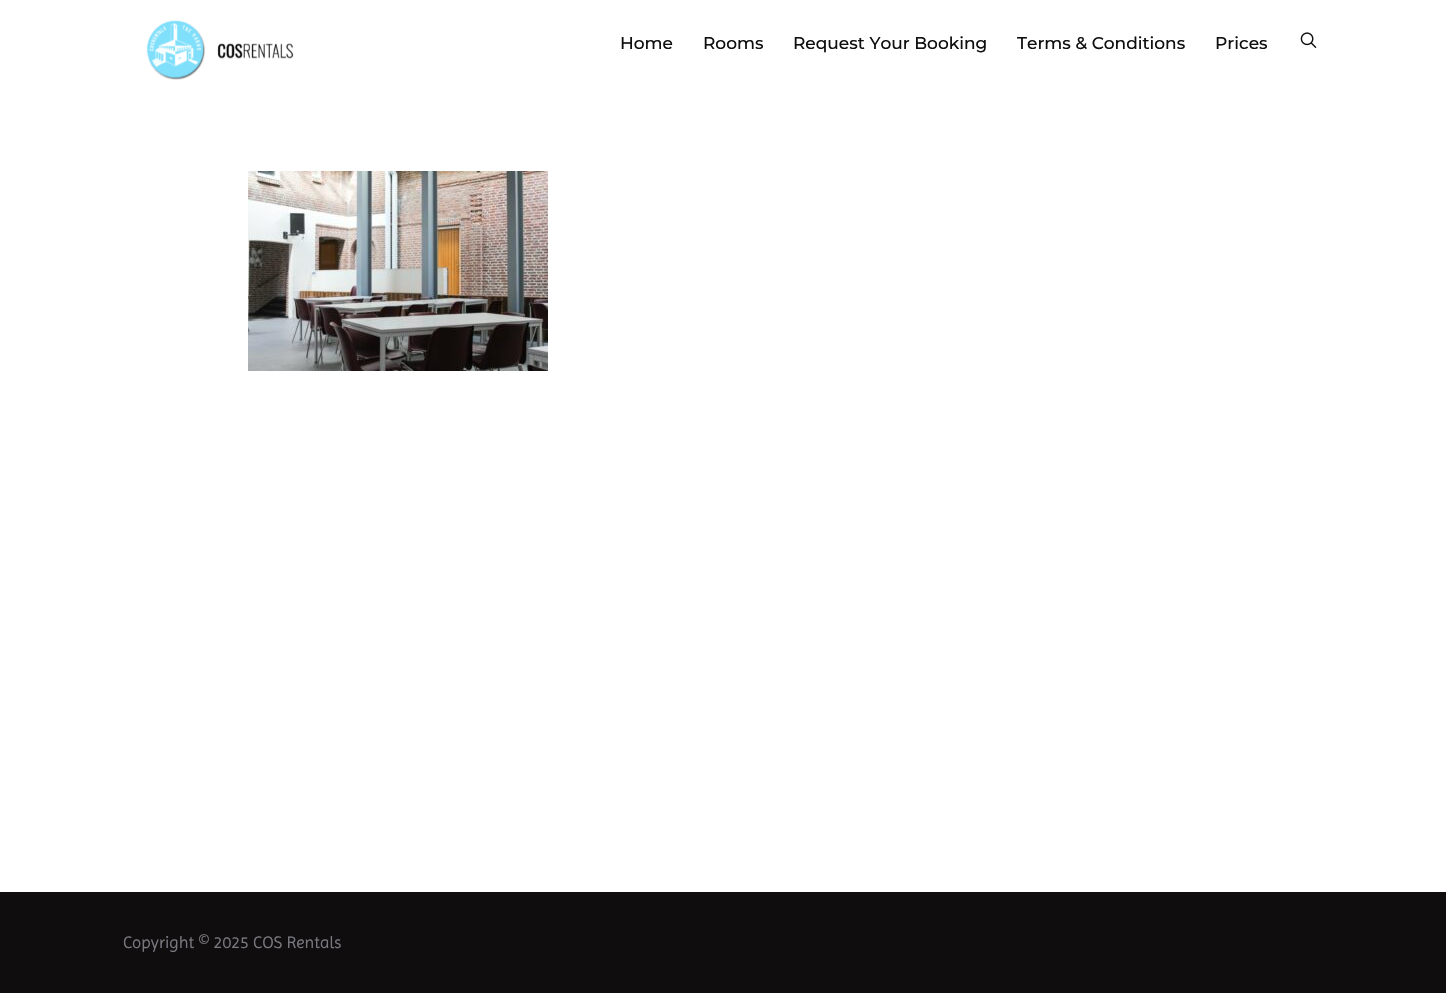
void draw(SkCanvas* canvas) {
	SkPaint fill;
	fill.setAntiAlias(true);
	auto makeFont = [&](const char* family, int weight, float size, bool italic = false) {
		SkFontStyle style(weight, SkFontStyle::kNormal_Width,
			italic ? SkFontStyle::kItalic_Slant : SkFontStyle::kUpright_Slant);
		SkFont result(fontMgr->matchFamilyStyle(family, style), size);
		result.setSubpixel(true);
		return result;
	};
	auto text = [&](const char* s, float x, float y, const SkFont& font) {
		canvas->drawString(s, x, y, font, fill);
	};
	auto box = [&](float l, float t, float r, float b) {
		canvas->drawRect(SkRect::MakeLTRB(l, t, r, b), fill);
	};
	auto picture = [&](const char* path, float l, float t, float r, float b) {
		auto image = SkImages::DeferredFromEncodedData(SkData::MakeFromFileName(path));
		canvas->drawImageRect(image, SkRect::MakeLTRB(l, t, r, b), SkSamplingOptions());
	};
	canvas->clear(0xFFFFFFFF);
	picture("image0.png", 146, 20, 294, 80);
	picture("image1.png", 1300, 32, 1317, 48);
	picture("image2.png", 248, 171, 548, 371);
	fill.setColor(0xFF0F0D0D);
	box(0, 892, 1446, 993);
	auto font1 = makeFont("Montserrat", 500, 17);
	fill.setColor(0xFF0F0F0F);
	text("Home", 620, 49, font1);
	text("Rooms", 703, 49, font1);
	text("Request Your Booking", 793, 49, font1);
	text("Terms & Conditions", 1017, 49, font1);
	text("Prices", 1215, 49, font1);
	auto font2 = makeFont("Imprima", 400, 17);
	fill.setColor(0xFF78787F);
	text("Copyright © 2025 COS Rentals", 123, 948, font2);
}
